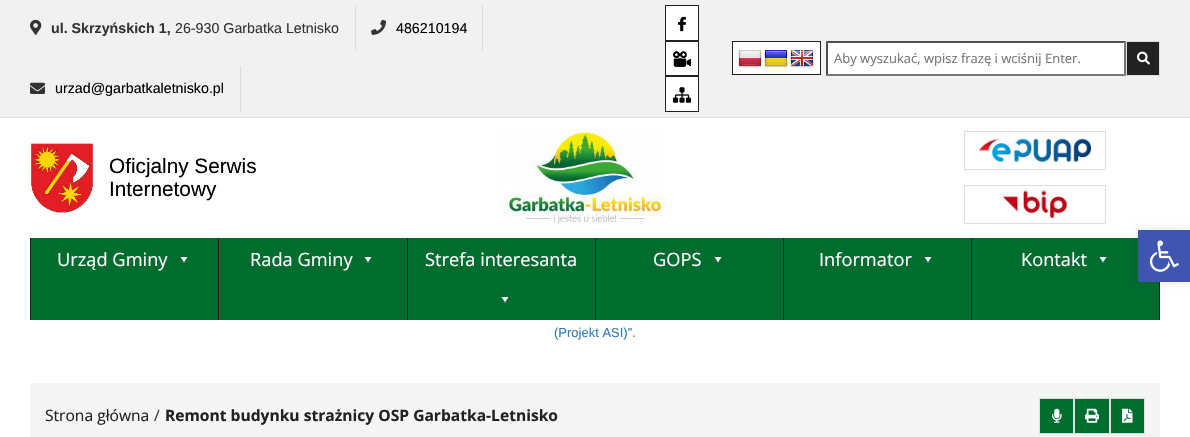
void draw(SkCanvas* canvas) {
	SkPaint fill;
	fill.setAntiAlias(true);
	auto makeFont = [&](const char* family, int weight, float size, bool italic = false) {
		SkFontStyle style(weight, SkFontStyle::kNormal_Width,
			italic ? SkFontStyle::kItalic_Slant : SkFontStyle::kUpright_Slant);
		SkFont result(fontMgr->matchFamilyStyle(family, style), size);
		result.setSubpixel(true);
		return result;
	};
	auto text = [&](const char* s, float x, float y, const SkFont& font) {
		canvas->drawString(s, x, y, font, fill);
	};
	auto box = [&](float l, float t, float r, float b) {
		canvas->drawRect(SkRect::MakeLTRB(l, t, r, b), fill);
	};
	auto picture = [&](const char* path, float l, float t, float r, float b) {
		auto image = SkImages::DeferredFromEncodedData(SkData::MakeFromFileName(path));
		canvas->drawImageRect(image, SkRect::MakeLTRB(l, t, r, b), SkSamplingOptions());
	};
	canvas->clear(0xFFFFFFFF);
	fill.setColor(0xFFF1F1F1);
	box(0, 0, 1190, 117);
	fill.setColor(0xFFDDDDDD);
	box(0, 117, 1190, 118);
	box(355, 5, 356, 51);
	picture("image0.png", 30, 19, 42, 35);
	box(482, 5, 483, 51);
	picture("image1.png", 371, 19, 386, 35);
	box(240, 66, 241, 112);
	picture("image2.png", 30, 82, 45, 94);
	fill.setColor(0xFFFFFFFF);
	canvas->drawRect(SkRect::MakeLTRB(665.5f, 5.5f, 698.5f, 40.5f), fill);
	fill.setStyle(SkPaint::kStroke_Style);
	fill.setStrokeWidth(1);
	fill.setColor(0xFF222222);
	canvas->drawRect(SkRect::MakeLTRB(665.5f, 5.5f, 698.5f, 40.5f), fill);
	picture("image3.png", 678, 16, 686, 32);
	fill.setStyle(SkPaint::kFill_Style);
	fill.setColor(0xFFFFFFFF);
	canvas->drawRect(SkRect::MakeLTRB(665.5f, 41.5f, 698.5f, 75.5f), fill);
	fill.setStyle(SkPaint::kStroke_Style);
	fill.setColor(0xFF222222);
	canvas->drawRect(SkRect::MakeLTRB(665.5f, 41.5f, 698.5f, 75.5f), fill);
	picture("image4.png", 673, 51, 691, 67);
	fill.setStyle(SkPaint::kFill_Style);
	fill.setColor(0xFFFFFFFF);
	canvas->drawRect(SkRect::MakeLTRB(665.5f, 76.5f, 698.5f, 111.5f), fill);
	fill.setStyle(SkPaint::kStroke_Style);
	fill.setColor(0xFF222222);
	canvas->drawRect(SkRect::MakeLTRB(665.5f, 76.5f, 698.5f, 111.5f), fill);
	picture("image5.png", 673, 87, 691, 103);
	fill.setStyle(SkPaint::kFill_Style);
	fill.setColor(0xFFFFFFFF);
	canvas->drawRect(SkRect::MakeLTRB(732.5f, 41.5f, 820.5f, 74.5f), fill);
	fill.setStyle(SkPaint::kStroke_Style);
	fill.setColor(0xFF222222);
	canvas->drawRect(SkRect::MakeLTRB(732.5f, 41.5f, 820.5f, 74.5f), fill);
	picture("image6.png", 738, 50, 762, 68);
	picture("image7.png", 764, 50, 788, 68);
	picture("image8.png", 790, 50, 814, 68);
	fill.setStyle(SkPaint::kFill_Style);
	fill.setColor(0xFFFFFFFF);
	box(826, 41, 1126, 76);
	fill.setColor(0xFF4F4F4F);
	canvas->drawPath(SkPathBuilder().moveTo(826, 41).lineTo(1126, 41).lineTo(1124, 43).lineTo(828, 43).close().detach(), fill);
	fill.setColor(0xFF767676);
	canvas->drawPath(SkPathBuilder().moveTo(1126, 41).lineTo(1126, 76).lineTo(1124, 74).lineTo(1124, 43).close().detach(), fill);
	canvas->drawPath(SkPathBuilder().moveTo(1126, 76).lineTo(826, 76).lineTo(828, 74).lineTo(1124, 74).close().detach(), fill);
	fill.setColor(0xFF4F4F4F);
	canvas->drawPath(SkPathBuilder().moveTo(826, 76).lineTo(826, 41).lineTo(828, 43).lineTo(828, 74).close().detach(), fill);
	fill.setColor(0xFF222222);
	canvas->drawRect(SkRect::MakeLTRB(1126.5f, 41.5f, 1159.5f, 75.5f), fill);
	fill.setStyle(SkPaint::kStroke_Style);
	fill.setColor(0xFFDDDDDD);
	canvas->drawRect(SkRect::MakeLTRB(1126.5f, 41.5f, 1159.5f, 75.5f), fill);
	picture("image9.png", 1137, 51, 1150, 65);
	picture("image10.png", 31, 143, 93, 213);
	picture("image11.png", 500, 129, 665, 225);
	canvas->drawRect(SkRect::MakeLTRB(964.5f, 131.5f, 1105.5f, 169.5f), fill);
	picture("image12.png", 977, 138, 1092, 162);
	canvas->drawRect(SkRect::MakeLTRB(964.5f, 185.5f, 1105.5f, 223.5f), fill);
	picture("image13.png", 1002, 190, 1068, 219);
	fill.setStyle(SkPaint::kFill_Style);
	fill.setColor(0xFF006D2F);
	box(31, 238, 1159, 320);
	fill.setColor(0xFF222222);
	box(30, 238, 31, 320);
	fill.setColor(0xFFFFFFFF);
	canvas->drawPath(SkPathBuilder().moveTo(187.5f, 257).lineTo(184, 262.5f).lineTo(180.5f, 257).close().detach(), fill);
	fill.setColor(0xFF222222);
	box(218, 238, 219, 320);
	fill.setColor(0xFFFFFFFF);
	canvas->drawPath(SkPathBuilder().moveTo(371.5f, 257).lineTo(368, 262.5f).lineTo(364.5f, 257).close().detach(), fill);
	fill.setColor(0xFF222222);
	box(407, 238, 408, 320);
	fill.setColor(0xFFFFFFFF);
	canvas->drawPath(SkPathBuilder().moveTo(508.5f, 297).lineTo(505, 302.5f).lineTo(501.5f, 297).close().detach(), fill);
	fill.setColor(0xFF222222);
	box(595, 238, 596, 320);
	fill.setColor(0xFFFFFFFF);
	canvas->drawPath(SkPathBuilder().moveTo(721.5f, 257).lineTo(718, 262.5f).lineTo(714.5f, 257).close().detach(), fill);
	fill.setColor(0xFF222222);
	box(783, 238, 784, 320);
	fill.setColor(0xFFFFFFFF);
	canvas->drawPath(SkPathBuilder().moveTo(931.5f, 257).lineTo(928, 262.5f).lineTo(924.5f, 257).close().detach(), fill);
	fill.setColor(0xFF222222);
	box(1159, 282, 1160, 320);
	box(971, 238, 972, 320);
	fill.setColor(0xFFFFFFFF);
	canvas->drawPath(SkPathBuilder().moveTo(1106.5f, 257).lineTo(1103, 262.5f).lineTo(1099.5f, 257).close().detach(), fill);
	fill.setColor(0xFFF5F5F5);
	box(30, 383, 1160, 437);
	fill.setStyle(SkPaint::kStroke_Style);
	fill.setColor(0xFFDDDDDD);
	canvas->drawRect(SkRect::MakeLTRB(1039.5f, 398.5f, 1073.5f, 433.5f), fill);
	fill.setStyle(SkPaint::kFill_Style);
	fill.setColor(0xFF006D2F);
	box(1040, 399, 1073, 433);
	picture("image14.png", 1052, 408, 1062, 423);
	fill.setStyle(SkPaint::kStroke_Style);
	fill.setColor(0xFFDDDDDD);
	canvas->drawRect(SkRect::MakeLTRB(1074.5f, 398.5f, 1109.5f, 433.5f), fill);
	fill.setStyle(SkPaint::kFill_Style);
	fill.setColor(0xFF006D2F);
	box(1075, 399, 1109, 433);
	picture("image15.png", 1085, 408, 1099, 423);
	fill.setStyle(SkPaint::kStroke_Style);
	fill.setColor(0xFFDDDDDD);
	canvas->drawRect(SkRect::MakeLTRB(1110.5f, 398.5f, 1144.5f, 433.5f), fill);
	fill.setStyle(SkPaint::kFill_Style);
	fill.setColor(0xFF006D2F);
	box(1111, 399, 1144, 433);
	picture("image16.png", 1122, 408, 1133, 423);
	fill.setColor(0x1A000000);
	fill.setMaskFilter(SkMaskFilter::MakeBlur(kNormal_SkBlurStyle, 5));
	canvas->drawRect(SkRect::MakeLTRB(1138, 230, 1190, 282), fill);
	fill.setMaskFilter(nullptr);
	fill.setColor(0xFF4054B2);
	box(1138, 230, 1190, 282);
	picture("image17.png", 1149, 240, 1179, 272);
	auto font1 = makeFont("Liberation Sans", 700, 14.25f);
	fill.setColor(0xFF333333);
	text("ul. Skrzyńskich 1,", 51, 33, font1);
	auto font2 = makeFont("Liberation Sans", 400, 14.25f);
	text("26-930 Garbatka Letnisko", 175, 33, font2);
	fill.setColor(0xFF000000);
	text("486210194", 396, 33, font2);
	text("urzad@garbatkaletnisko.pl", 55, 93, font2);
	auto font3 = makeFont("Open Sans", 400, 13);
	fill.setColor(0xFF757575);
	text("Aby wyszukać, wpisz frazę i wciśnij Enter.", 834, 63, font3);
	auto font4 = makeFont("Liberation Sans", 400, 20.75f);
	fill.setColor(0xFF000000);
	text("Oficjalny Serwis", 109, 173, font4);
	text("Internetowy", 109, 196, font4);
	auto font5 = makeFont("Open Sans", 400, 18.25f);
	fill.setColor(0xFFFFFFFF);
	text("Urząd Gminy", 57, 266, font5);
	text("Rada Gminy", 250, 266, font5);
	text("Strefa interesanta", 425, 266, font5);
	text("GOPS", 653, 266, font5);
	text("Informator", 819, 266, font5);
	text("Kontakt", 1021, 266, font5);
	auto font6 = makeFont("Liberation Sans", 400, 13);
	fill.setColor(0xFF337AB7);
	text("(Projekt ASI)”.", 554, 337, font6);
	auto font7 = makeFont("Open Sans", 400, 15.6f);
	fill.setColor(0xFF222222);
	text("Strona główna", 45, 421, font7);
	fill.setColor(0xFF333333);
	text("/", 154, 421, font7);
	auto font8 = makeFont("Open Sans", 700, 15.6f);
	fill.setColor(0xFF222222);
	text("Remont budynku strażnicy OSP Garbatka-Letnisko", 165, 421, font8);
}
